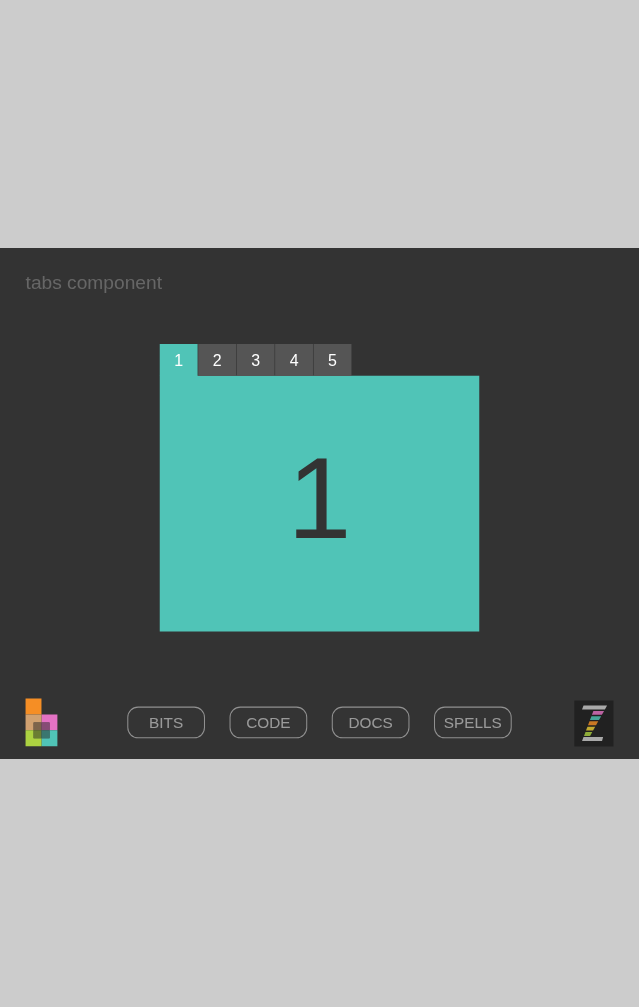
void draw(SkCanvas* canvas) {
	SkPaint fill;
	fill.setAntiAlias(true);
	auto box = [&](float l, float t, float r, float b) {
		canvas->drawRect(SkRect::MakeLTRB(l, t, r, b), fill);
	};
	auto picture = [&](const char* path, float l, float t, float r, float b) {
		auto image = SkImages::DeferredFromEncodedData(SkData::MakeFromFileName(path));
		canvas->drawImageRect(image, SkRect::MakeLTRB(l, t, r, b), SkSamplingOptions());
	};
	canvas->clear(0xFFCCCCCC);
	fill.setColor(0xFF333333);
	box(0, 248, 639, 759);
	picture("image0.png", 25, 276, 614, 747);
}
